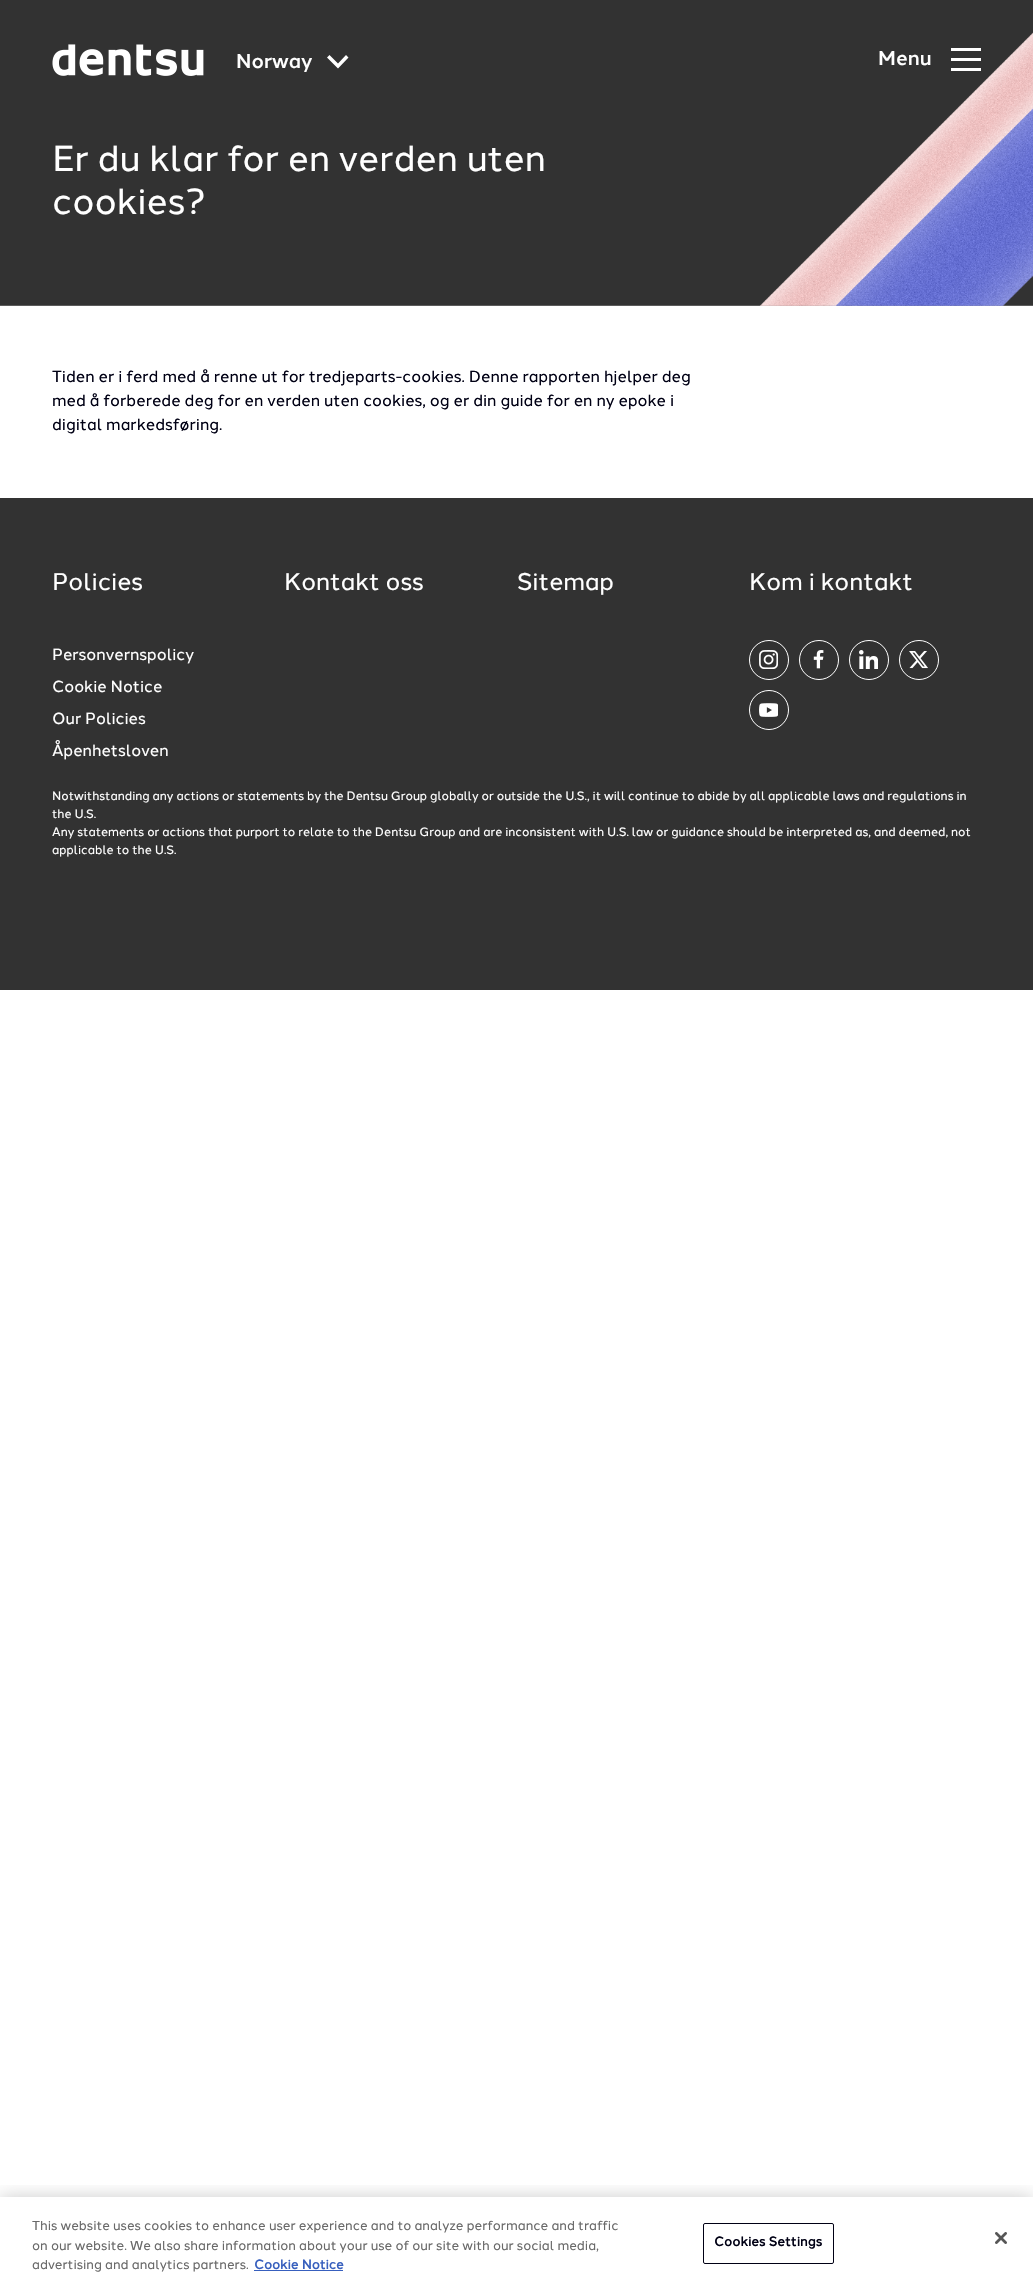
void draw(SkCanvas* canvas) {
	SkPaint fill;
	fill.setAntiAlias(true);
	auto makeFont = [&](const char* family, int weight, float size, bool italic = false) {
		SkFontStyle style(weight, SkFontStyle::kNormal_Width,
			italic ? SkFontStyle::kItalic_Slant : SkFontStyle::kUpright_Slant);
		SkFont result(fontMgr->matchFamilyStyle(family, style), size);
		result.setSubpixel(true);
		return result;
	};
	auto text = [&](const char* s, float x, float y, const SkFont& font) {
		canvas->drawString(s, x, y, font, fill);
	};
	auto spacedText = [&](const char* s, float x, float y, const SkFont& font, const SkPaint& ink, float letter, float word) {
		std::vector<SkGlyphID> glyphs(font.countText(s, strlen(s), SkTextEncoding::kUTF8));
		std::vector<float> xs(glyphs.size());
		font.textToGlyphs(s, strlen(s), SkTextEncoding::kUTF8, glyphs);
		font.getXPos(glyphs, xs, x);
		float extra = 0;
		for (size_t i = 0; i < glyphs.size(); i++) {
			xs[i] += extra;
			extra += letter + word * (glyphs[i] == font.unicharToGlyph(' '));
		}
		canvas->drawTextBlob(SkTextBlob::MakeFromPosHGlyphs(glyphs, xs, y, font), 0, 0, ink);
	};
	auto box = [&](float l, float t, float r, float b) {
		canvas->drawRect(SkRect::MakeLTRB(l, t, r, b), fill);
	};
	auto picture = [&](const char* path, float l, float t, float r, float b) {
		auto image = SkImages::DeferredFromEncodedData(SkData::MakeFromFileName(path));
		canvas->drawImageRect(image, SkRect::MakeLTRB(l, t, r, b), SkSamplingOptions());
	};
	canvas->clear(0xFFFFFFFF);
	picture("image1.png", 0, 0, 1033, 306);
	picture("image0.png", 52, 44, 204, 76);
	fill.setColor(0xFFFFFFFF);
	canvas->drawPath(SkPathBuilder().moveTo(338, 63.5f).lineTo(346, 55).lineTo(348.5f, 57.5f).lineTo(338, 68.5f).lineTo(327, 57.5f).lineTo(329.5f, 55).close().detach(), fill);
	box(951, 48, 981, 51);
	box(951, 58, 981, 61);
	box(951, 68, 981, 71);
	fill.setColor(0xFF323232);
	box(0, 498, 1033, 990);
	fill.setStyle(SkPaint::kStroke_Style);
	fill.setStrokeWidth(1);
	fill.setColor(0xFFFFFFFF);
	canvas->drawCircle(769, 660, 19.5f, fill);
	picture("image2.png", 759, 650, 778, 669);
	canvas->drawCircle(819, 660, 19.5f, fill);
	picture("image3.png", 813, 650, 824, 669);
	canvas->drawCircle(869, 660, 19.5f, fill);
	picture("image4.png", 859, 650, 878, 669);
	canvas->drawCircle(919, 660, 19.5f, fill);
	picture("image5.png", 909, 651, 928, 669);
	canvas->drawCircle(769, 710, 19.5f, fill);
	picture("image6.png", 759, 703, 778, 717);
	canvas->save();
	canvas->clipRect(SkRect::MakeLTRB(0, 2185, 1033, 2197));
	fill.setStyle(SkPaint::kFill_Style);
	fill.setColor(0x33000000);
	fill.setMaskFilter(SkMaskFilter::MakeBlur(kNormal_SkBlurStyle, 9));
	canvas->drawRect(SkRect::MakeLTRB(0, 2197, 1033, 2286), fill);
	fill.setMaskFilter(nullptr);
	canvas->restore();
	fill.setColor(0xFF3860BE);
	box(254, 2270, 343, 2271);
	fill.setStyle(SkPaint::kStroke_Style);
	fill.setColor(0xFF000014);
	canvas->drawRoundRect(SkRect::MakeLTRB(703.5f, 2223.5f, 833.5f, 2263.5f), 1.5f, 1.5f, fill);
	picture("image7.png", 995, 2232, 1007, 2244);
	auto font1 = makeFont("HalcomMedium", 500, 20);
	fill.setStyle(SkPaint::kFill_Style);
	fill.setColor(0xFFFFFFFF);
	text("Norway", 236, 68, font1);
	text("Menu", 878, 65, font1);
	auto font2 = makeFont("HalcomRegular", 400, 36);
	text("Er du klar for en verden uten", 52, 171, font2);
	text("cookies?", 52, 214, font2);
	auto font3 = makeFont("HalcomRegular", 400, 16);
	fill.setColor(0xFF000014);
	text("Tiden er i ferd med å renne ut for tredjeparts-cookies. Denne rapporten hjelper deg", 52, 382, font3);
	text("med å forberede deg for en verden uten cookies, og er din guide for en ny epoke i", 52, 406, font3);
	text("digital markedsføring.", 52, 430, font3);
	auto font4 = makeFont("HalcomRegular", 400, 24);
	fill.setColor(0xFFFFFFFF);
	text("Policies", 52, 590, font4);
	text("Personvernspolicy", 52, 660, font3);
	text("Cookie Notice", 52, 692, font3);
	text("Our Policies", 52, 724, font3);
	text("Åpenhetsloven", 52, 756, font3);
	text("Kontakt oss", 284, 590, font4);
	text("Sitemap", 517, 590, font4);
	text("Kom i kontakt", 749, 590, font4);
	auto font5 = makeFont("HalcomRegular", 400, 12);
	text("Notwithstanding any actions or statements by the Dentsu Group globally or outside the U.S., it will continue to abide by all applicable laws and regulations in", 52, 800, font5);
	text("the U.S.", 52, 818, font5);
	text("Any statements or actions that purport to relate to the Dentsu Group and are inconsistent with U.S. law or guidance should be interpreted as, and deemed, not", 52, 836, font5);
	text("applicable to the U.S.", 52, 854, font5);
	auto font6 = makeFont("HalcomRegular", 400, 13);
	fill.setColor(0xFF696969);
	text("This website uses cookies to enhance user experience and to analyze performance and traffic", 32, 2230, font6);
	text("on our website. We also share information about your use of our site with our social media,", 32, 2250, font6);
	text("advertising and analytics partners.", 32, 2269, font6);
	auto font7 = makeFont("HalcomRegular", 700, 13);
	fill.setColor(0xFF3860BE);
	text("Cookie Notice", 254, 2269, font7);
	fill.setColor(0xFF000014);
	spacedText("Cookies Settings", 714, 2246, font7, fill, 0.1f, 0);
}
